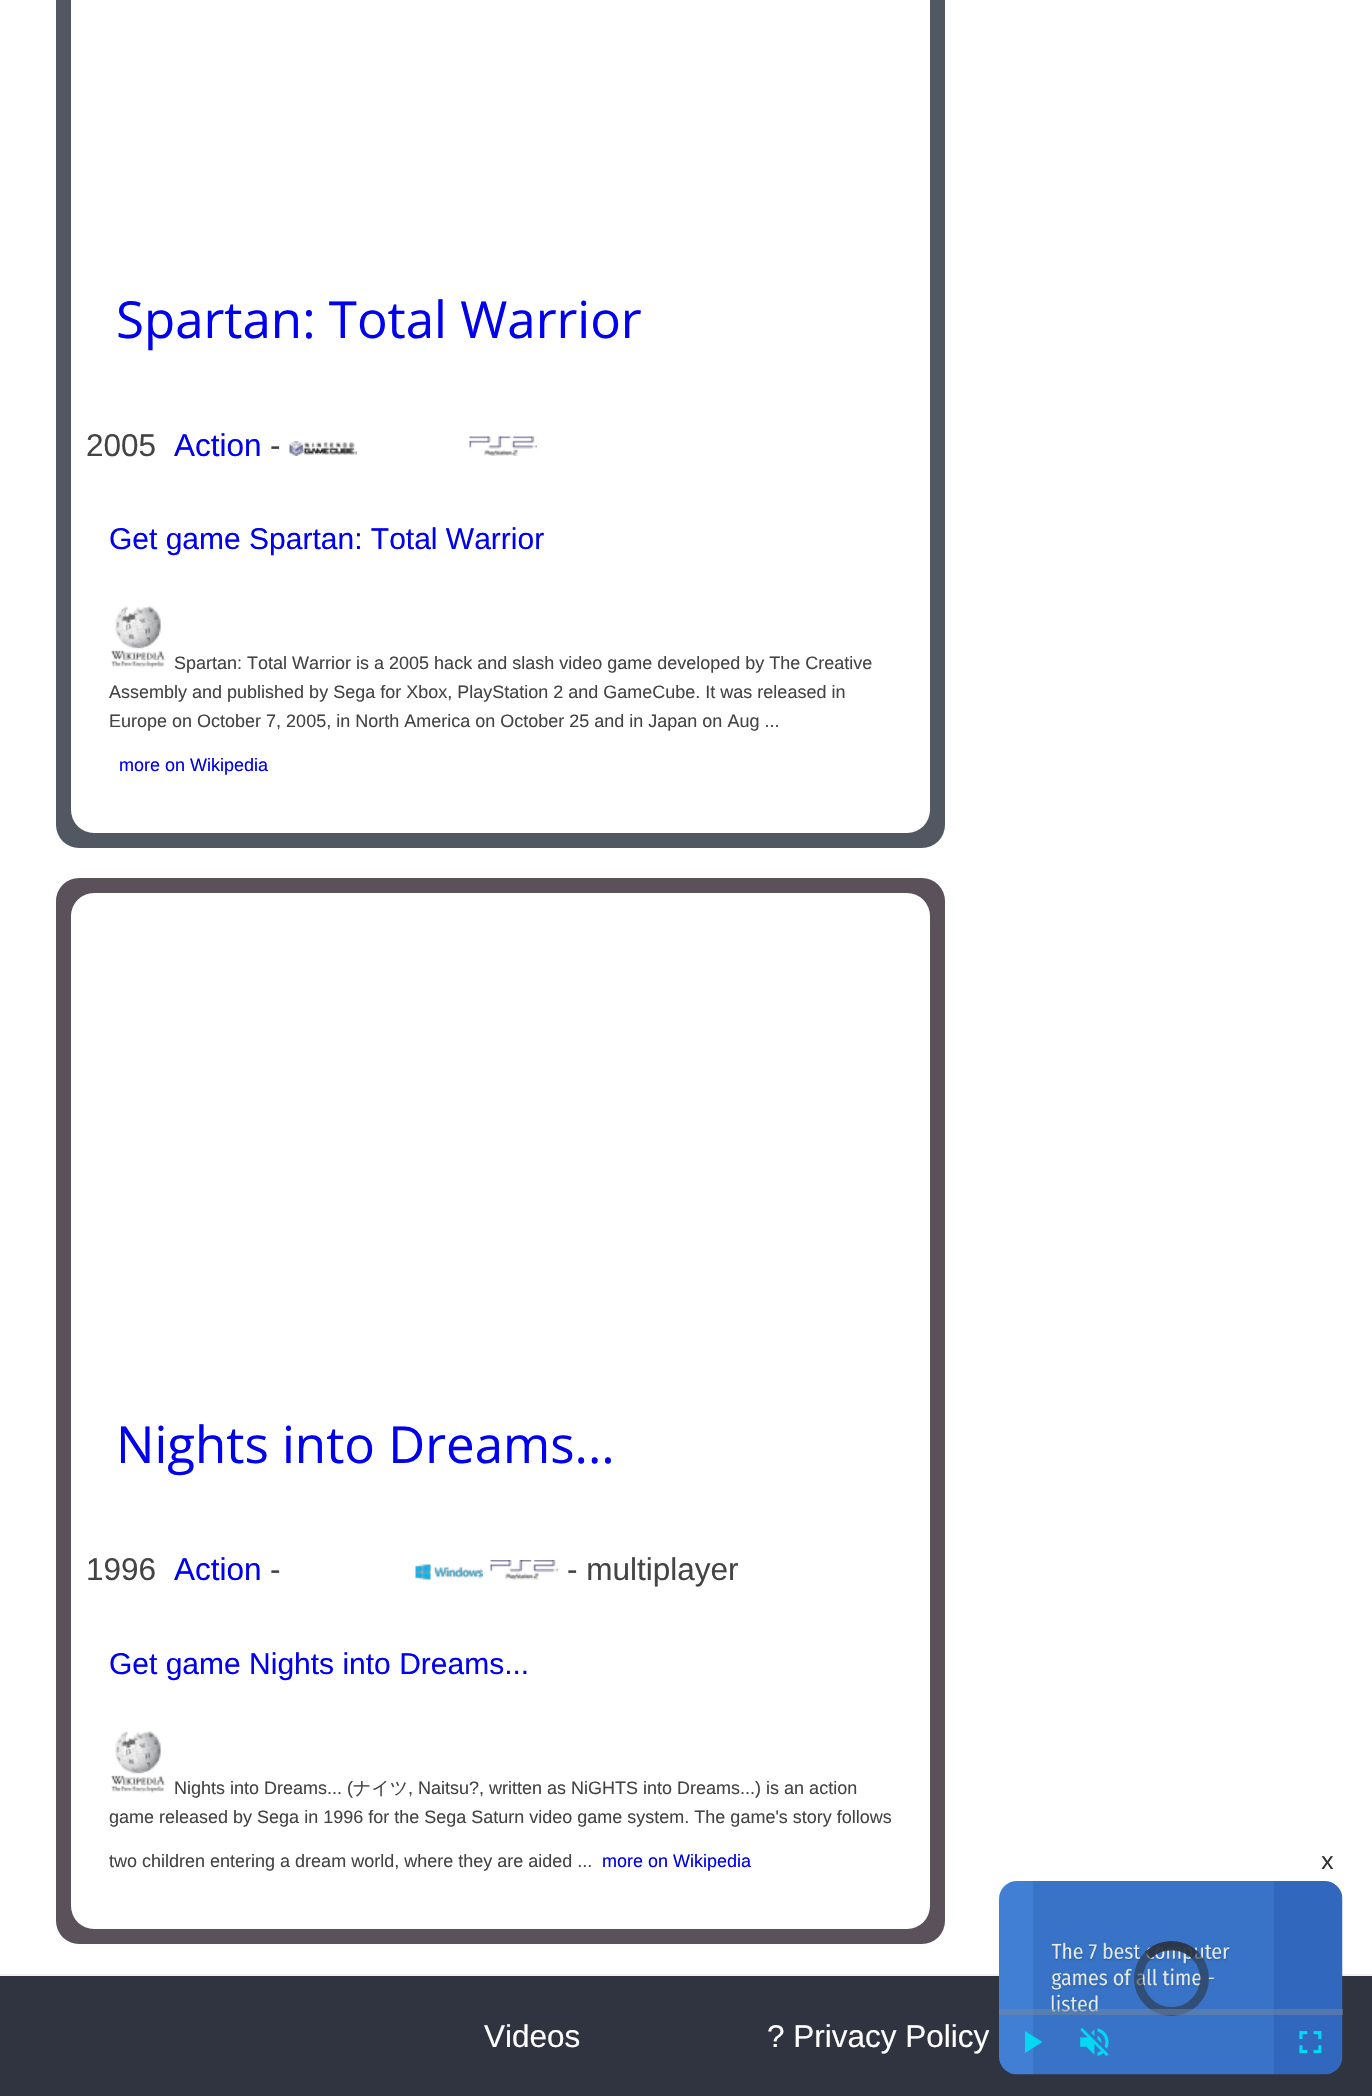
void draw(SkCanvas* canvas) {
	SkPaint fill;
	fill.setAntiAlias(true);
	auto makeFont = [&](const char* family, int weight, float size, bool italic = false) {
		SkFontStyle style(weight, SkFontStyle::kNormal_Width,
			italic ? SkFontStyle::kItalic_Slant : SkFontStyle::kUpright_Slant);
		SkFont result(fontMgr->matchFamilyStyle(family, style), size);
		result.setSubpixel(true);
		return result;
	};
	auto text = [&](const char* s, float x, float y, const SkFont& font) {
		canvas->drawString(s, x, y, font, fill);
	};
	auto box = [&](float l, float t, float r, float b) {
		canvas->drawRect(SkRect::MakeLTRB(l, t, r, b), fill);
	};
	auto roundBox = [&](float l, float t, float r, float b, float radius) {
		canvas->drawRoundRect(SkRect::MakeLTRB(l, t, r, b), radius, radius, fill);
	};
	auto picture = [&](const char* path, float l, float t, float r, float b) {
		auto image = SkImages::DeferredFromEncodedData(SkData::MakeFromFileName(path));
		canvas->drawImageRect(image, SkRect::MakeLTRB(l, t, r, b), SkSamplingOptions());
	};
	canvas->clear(0xFFFFFFFF);
	fill.setColor(0xFF515862);
	roundBox(56, -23, 945, 848, 23);
	fill.setColor(0xFFFFFFFF);
	roundBox(71, -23, 930, 833, 23);
	picture("image0.png", 289, 441, 357, 456);
	picture("image1.png", 469, 436, 537, 456);
	picture("image2.png", 111, 605, 166, 668);
	fill.setColor(0xFF5A515A);
	roundBox(56, 878, 945, 1944, 23);
	fill.setColor(0xFFFFFFFF);
	roundBox(71, 893, 930, 1929, 23);
	picture("image3.png", 415, 1564, 483, 1580);
	picture("image4.png", 490, 1560, 558, 1580);
	picture("image2.png", 111, 1730, 166, 1793);
	fill.setColor(0xFF303440);
	box(0, 1976, 1372, 2096);
	fill.setColor(0xFFF2F2F2);
	box(0, 1974, 1372, 1976);
	picture("image5.png", 999, 1881, 1343, 2075);
	fill.setStyle(SkPaint::kStroke_Style);
	fill.setStrokeWidth(9);
	fill.setColor(0x962B333F);
	canvas->drawCircle(1171.5f, 1978.5f, 33, fill);
	canvas->drawPath(SkPathBuilder().moveTo(1148, 1955).cubicTo(1161, 1942.5f, 1182, 1942.5f, 1195, 1955).detach(), fill);
	canvas->drawPath(SkPathBuilder().moveTo(1148, 1955).cubicTo(1161, 1942.5f, 1182, 1942.5f, 1195, 1955).detach(), fill);
	fill.setStyle(SkPaint::kFill_Style);
	fill.setColor(0x8073859F);
	box(999, 2009, 1343, 2015);
	fill.setColor(0xFF03D8F3);
	canvas->drawPath(SkPathBuilder().moveTo(1025, 2031).lineTo(1025, 2053).lineTo(1042.5f, 2042).close().detach(), fill);
	picture("image6.png", 1080, 2028, 1109, 2057);
	picture("image7.png", 1299, 2031, 1322, 2054);
	auto font1 = makeFont("Open Sans", 400, 51);
	fill.setColor(0xFF0000EE);
	text("Spartan: Total Warrior", 116, 338, font1);
	auto font2 = makeFont("Liberation Sans", 400, 31.5f);
	fill.setColor(0xFF444444);
	text("2005", 86, 456, font2);
	fill.setColor(0xFF0000EE);
	text("Action", 174, 456, font2);
	fill.setColor(0xFF444444);
	text("-", 270, 456, font2);
	auto font3 = makeFont("Liberation Sans", 400, 30);
	fill.setColor(0xFF0000EE);
	text("Get game Spartan: Total Warrior", 109, 549, font3);
	auto font4 = makeFont("Liberation Sans", 400, 18);
	fill.setColor(0xFF444444);
	text("Spartan: Total Warrior is a 2005 hack and slash video game developed by The Creative", 174, 669, font4);
	text("Assembly and published by Sega for Xbox, PlayStation 2 and GameCube. It was released in", 109, 698, font4);
	text("Europe on October 7, 2005, in North America on October 25 and in Japan on Aug ...", 109, 727, font4);
	fill.setColor(0xFF0000EE);
	text("more on Wikipedia", 119, 771, font4);
	text("Nights into Dreams...", 116, 1463, font1);
	fill.setColor(0xFF444444);
	text("1996", 86, 1580, font2);
	fill.setColor(0xFF0000EE);
	text("Action", 174, 1580, font2);
	fill.setColor(0xFF444444);
	text("-", 270, 1580, font2);
	text("- multiplayer", 567, 1580, font2);
	fill.setColor(0xFF0000EE);
	text("Get game Nights into Dreams...", 109, 1674, font3);
	fill.setColor(0xFF444444);
	text("Nights into Dreams... (", 174, 1794, font4);
	auto font5 = makeFont("WenQuanYi Zen Hei", 500, 18);
	text("ナイツ", 353, 1794, font5);
	text(", Naitsu?, written as NiGHTS into Dreams...) is an action", 408, 1794, font4);
	text("game released by Sega in 1996 for the Sega Saturn video game system. The game's story follows", 109, 1823, font4);
	text("two children entering a dream world, where they are aided ...", 109, 1867, font4);
	fill.setColor(0xFF0000EE);
	text("more on Wikipedia", 602, 1867, font4);
	auto font6 = makeFont("Noto Sans", 400, 24);
	fill.setColor(0xFF333333);
	text("x", 1321, 1869, font6);
	fill.setColor(0xFFFFFFFF);
	text("Videos", 484, 2047, font2);
	text("? Privacy Policy", 767, 2047, font2);
}
